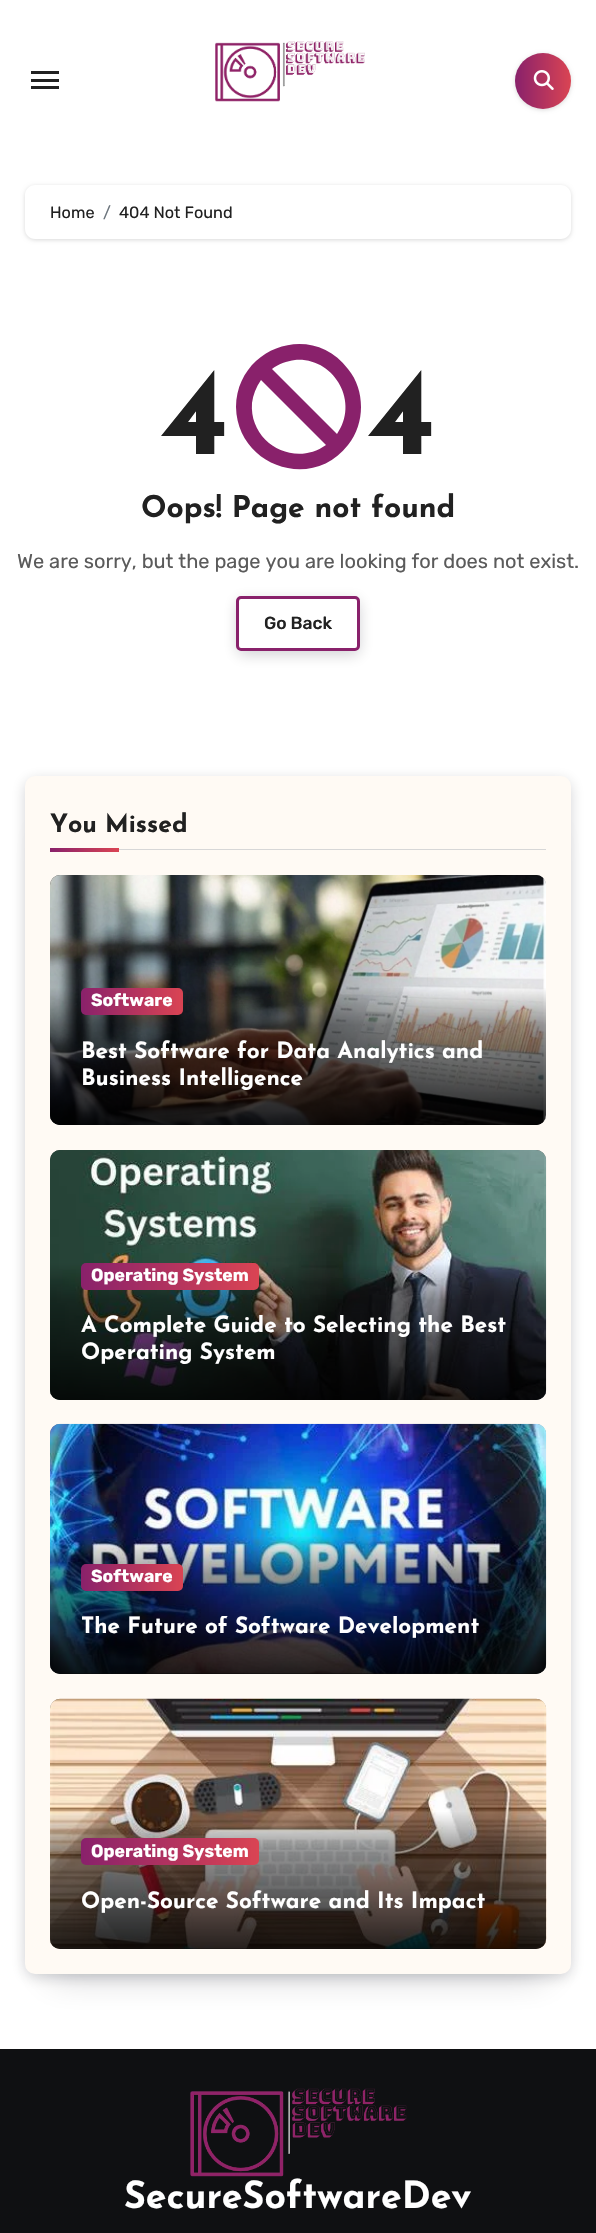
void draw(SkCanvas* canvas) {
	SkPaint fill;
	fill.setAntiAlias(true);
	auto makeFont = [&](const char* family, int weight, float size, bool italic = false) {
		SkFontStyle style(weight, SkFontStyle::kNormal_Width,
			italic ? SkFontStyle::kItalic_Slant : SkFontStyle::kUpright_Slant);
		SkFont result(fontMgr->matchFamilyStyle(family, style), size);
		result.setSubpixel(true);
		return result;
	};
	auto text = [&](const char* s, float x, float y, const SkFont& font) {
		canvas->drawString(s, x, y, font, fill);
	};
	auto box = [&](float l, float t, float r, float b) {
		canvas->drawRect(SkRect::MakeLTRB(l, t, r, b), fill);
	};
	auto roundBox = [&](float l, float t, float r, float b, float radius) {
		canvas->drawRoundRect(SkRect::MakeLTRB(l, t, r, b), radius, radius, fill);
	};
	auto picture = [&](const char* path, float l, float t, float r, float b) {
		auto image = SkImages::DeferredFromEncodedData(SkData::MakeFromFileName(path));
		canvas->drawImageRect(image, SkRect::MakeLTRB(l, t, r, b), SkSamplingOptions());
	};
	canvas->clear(0xFFFFFFFF);
	fill.setColor(0xFF212121);
	box(31, 71, 59, 74);
	box(31, 79, 59, 82);
	box(31, 86, 59, 89);
	picture("image0.png", 215, 41, 365, 102);
	fill.setColor(0x26000000);
	fill.setMaskFilter(SkMaskFilter::MakeBlur(kNormal_SkBlurStyle, 2));
	canvas->drawRoundRect(SkRect::MakeLTRB(515, 54, 571, 110), 28, 28, fill);
	fill.setMaskFilter(nullptr);
	{
		const SkColor colors[] = {0xFF89216B, 0xFFDA4453};
		const float stops[] = {0, 1};
		const SkPoint ends[] = {{515, 81}, {571, 81}};
		fill.setShader(SkGradientShader::MakeLinear(ends, colors, stops, 2, SkTileMode::kClamp));
		fill.setAlpha(255);
	}
	canvas->drawCircle(543, 81, 28, fill);
	picture("image1.png", 533, 70, 554, 90);
	canvas->save();
	canvas->clipPath(SkPathBuilder(SkPathFillType::kEvenOdd).moveTo(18, 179).lineTo(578, 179).lineTo(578, 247).lineTo(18, 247).close().moveTo(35, 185).lineTo(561, 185).cubicTo(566.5f, 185, 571, 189.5f, 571, 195).lineTo(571, 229).cubicTo(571, 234.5f, 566.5f, 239, 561, 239).lineTo(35, 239).cubicTo(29.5f, 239, 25, 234.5f, 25, 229).lineTo(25, 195).cubicTo(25, 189.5f, 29.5f, 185, 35, 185).close().detach(), true);
	fill.setShader(nullptr);
	fill.setColor(0x26000000);
	fill.setMaskFilter(SkMaskFilter::MakeBlur(kNormal_SkBlurStyle, 2));
	canvas->drawRoundRect(SkRect::MakeLTRB(25, 186, 571, 240), 10, 10, fill);
	fill.setMaskFilter(nullptr);
	canvas->restore();
	fill.setColor(0xFF89216B);
	canvas->drawPath(SkPathBuilder().moveTo(326, 445).lineTo(261, 380).cubicTo(256, 387, 253, 395, 252, 403).cubicTo(249, 443, 294, 468, 326, 445).close().moveTo(337, 434).cubicTo(360, 402, 334, 357, 295, 360).cubicTo(287, 361, 278, 364, 272, 369).close().moveTo(236, 407).cubicTo(237, 347, 312, 321, 348, 369).cubicTo(357, 380, 361, 393, 361, 407).cubicTo(361, 420, 357, 434, 348, 445).cubicTo(312, 492, 237, 466, 236, 407).close().detach(), fill);
	canvas->save();
	canvas->clipPath(SkPathBuilder(SkPathFillType::kEvenOdd).moveTo(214, 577).lineTo(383, 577).lineTo(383, 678).lineTo(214, 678).close().moveTo(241, 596).lineTo(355, 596).cubicTo(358, 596, 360, 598, 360, 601).lineTo(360, 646).cubicTo(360, 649, 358, 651, 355, 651).lineTo(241, 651).cubicTo(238, 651, 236, 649, 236, 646).lineTo(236, 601).cubicTo(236, 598, 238, 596, 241, 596).close().detach(), true);
	fill.setColor(0x33070A19);
	fill.setMaskFilter(SkMaskFilter::MakeBlur(kNormal_SkBlurStyle, 7.5f));
	canvas->drawRoundRect(SkRect::MakeLTRB(238, 601, 359, 654), 4, 4, fill);
	fill.setMaskFilter(nullptr);
	canvas->restore();
	fill.setStyle(SkPaint::kStroke_Style);
	fill.setStrokeWidth(3);
	fill.setColor(0xFF89216B);
	canvas->drawRoundRect(SkRect::MakeLTRB(237.5f, 597.5f, 358.5f, 649.5f), 3.5f, 3.5f, fill);
	fill.setStyle(SkPaint::kFill_Style);
	fill.setColor(0x33070A19);
	fill.setMaskFilter(SkMaskFilter::MakeBlur(kNormal_SkBlurStyle, 17));
	canvas->drawRect(SkRect::MakeLTRB(50, 829, 546, 1976), fill);
	fill.setMaskFilter(nullptr);
	fill.setMaskFilter(SkMaskFilter::MakeBlur(kNormal_SkBlurStyle, 7.5f));
	canvas->drawRoundRect(SkRect::MakeLTRB(26, 781, 570, 1976), 9, 9, fill);
	fill.setMaskFilter(nullptr);
	fill.setColor(0xFFFFFAF4);
	roundBox(25, 776, 571, 1974, 10);
	fill.setColor(0xFFD7D7D7);
	box(119, 849, 546, 850);
	{
		const SkColor colors[] = {0xFF89216B, 0xFFDA4453};
		const float stops[] = {0, 1};
		const SkPoint ends[] = {{50, 849}, {119, 849}};
		fill.setShader(SkGradientShader::MakeLinear(ends, colors, stops, 2, SkTileMode::kClamp));
		fill.setAlpha(255);
	}
	box(50, 848, 119, 852);
	fill.setShader(nullptr);
	fill.setColor(0xFF333333);
	roundBox(50, 875, 546, 1125, 10);
	picture("image2.png", 50, 875, 546, 1125);
	{
		const SkColor colors[] = {0x00000000, 0x00000000, 0x66000000, 0xD9000000};
		const float stops[] = {0, 0.45f, 0.6f, 1};
		const SkPoint ends[] = {{298, 875}, {298, 1125}};
		fill.setShader(SkGradientShader::MakeLinear(ends, colors, stops, 4, SkTileMode::kClamp));
		fill.setAlpha(255);
	}
	roundBox(50, 875, 546, 1125, 10);
	{
		const SkColor colors[] = {0xFF89216B, 0xFFDA4453};
		const float stops[] = {0, 1};
		const SkPoint ends[] = {{81, 1001}, {183, 1001}};
		fill.setShader(SkGradientShader::MakeLinear(ends, colors, stops, 2, SkTileMode::kClamp));
		fill.setAlpha(255);
	}
	roundBox(81, 988, 183, 1015, 5);
	fill.setShader(nullptr);
	fill.setColor(0xFF333333);
	roundBox(50, 1150, 546, 1400, 10);
	picture("image3.png", 50, 1150, 547, 1400);
	{
		const SkColor colors[] = {0x00000000, 0x00000000, 0x66000000, 0xD9000000};
		const float stops[] = {0, 0.45f, 0.6f, 1};
		const SkPoint ends[] = {{298, 1150}, {298, 1400}};
		fill.setShader(SkGradientShader::MakeLinear(ends, colors, stops, 4, SkTileMode::kClamp));
		fill.setAlpha(255);
	}
	roundBox(50, 1150, 546, 1400, 10);
	{
		const SkColor colors[] = {0xFF89216B, 0xFFDA4453};
		const float stops[] = {0, 1};
		const SkPoint ends[] = {{81, 1276}, {259, 1276}};
		fill.setShader(SkGradientShader::MakeLinear(ends, colors, stops, 2, SkTileMode::kClamp));
		fill.setAlpha(255);
	}
	roundBox(81, 1263, 259, 1290, 5);
	fill.setShader(nullptr);
	fill.setColor(0xFF333333);
	roundBox(50, 1424, 546, 1674, 10);
	picture("image4.png", 50, 1423, 547, 1674);
	{
		const SkColor colors[] = {0x00000000, 0x00000000, 0x66000000, 0xD9000000};
		const float stops[] = {0, 0.45f, 0.6f, 1};
		const SkPoint ends[] = {{298, 1424}, {298, 1674}};
		fill.setShader(SkGradientShader::MakeLinear(ends, colors, stops, 4, SkTileMode::kClamp));
		fill.setAlpha(255);
	}
	roundBox(50, 1424, 546, 1674, 10);
	{
		const SkColor colors[] = {0xFF89216B, 0xFFDA4453};
		const float stops[] = {0, 1};
		const SkPoint ends[] = {{81, 1578}, {183, 1578}};
		fill.setShader(SkGradientShader::MakeLinear(ends, colors, stops, 2, SkTileMode::kClamp));
		fill.setAlpha(255);
	}
	roundBox(81, 1564, 183, 1591, 5);
	fill.setShader(nullptr);
	fill.setColor(0xFF333333);
	roundBox(50, 1699, 546, 1949, 10);
	picture("image5.png", 50, 1698, 547, 1949);
	{
		const SkColor colors[] = {0x00000000, 0x00000000, 0x66000000, 0xD9000000};
		const float stops[] = {0, 0.45f, 0.6f, 1};
		const SkPoint ends[] = {{298, 1699}, {298, 1949}};
		fill.setShader(SkGradientShader::MakeLinear(ends, colors, stops, 4, SkTileMode::kClamp));
		fill.setAlpha(255);
	}
	roundBox(50, 1699, 546, 1949, 10);
	{
		const SkColor colors[] = {0xFF89216B, 0xFFDA4453};
		const float stops[] = {0, 1};
		const SkPoint ends[] = {{81, 1851}, {259, 1851}};
		fill.setShader(SkGradientShader::MakeLinear(ends, colors, stops, 2, SkTileMode::kClamp));
		fill.setAlpha(255);
	}
	roundBox(81, 1838, 259, 1865, 5);
	fill.setShader(nullptr);
	fill.setColor(0xFF0F1012);
	box(0, 2049, 596, 2233);
	picture("image6.png", 190, 2088, 407, 2177);
	auto font1 = makeFont("Rubik", 300, 16.25f);
	fill.setColor(0xFF212121);
	text("Home", 50, 218, font1);
	fill.setColor(0xFF6C757D);
	text("/", 103, 218, font1);
	fill.setColor(0xFF212121);
	text("404 Not Found", 119, 218, font1);
	auto font2 = makeFont("Josefin Sans", 700, 125);
	text("4", 160, 454, font2);
	text("4", 367, 454, font2);
	auto font3 = makeFont("Josefin Sans", 700, 30);
	text("Oops! Page not found", 141, 517, font3);
	auto font4 = makeFont("Rubik", 300, 20);
	fill.setColor(0xFF5B5B5B);
	text("We are sorry, but the page you are looking for does not exist.", 17, 568, font4);
	auto font5 = makeFont("Rubik", 500, 17.5f);
	fill.setColor(0xFF212121);
	text("Go Back", 264, 629, font5);
	auto font6 = makeFont("Josefin Sans", 700, 25);
	text("You Missed", 50, 832, font6);
	auto font7 = makeFont("Rubik", 700, 17.5f);
	fill.setColor(0xFFFFFFFF);
	text("Software", 91, 1006, font7);
	auto font8 = makeFont("Josefin Sans", 700, 22.5f);
	text("Best Software for Data Analytics and", 81, 1058, font8);
	text("Business Intelligence", 81, 1085, font8);
	text("Operating System", 91, 1281, font7);
	canvas->save();
	canvas->clipRect(SkRect::MakeLTRB(81, 1315, 515, 1369));
	text("A Complete Guide to Selecting the Best", 81, 1332, font8);
	canvas->restore();
	text("Operating System", 81, 1359, font8);
	text("Software", 91, 1582, font7);
	canvas->save();
	canvas->clipRect(SkRect::MakeLTRB(81, 1616, 515, 1643));
	text("The Future of Software Development", 81, 1633, font8);
	canvas->restore();
	text("Operating System", 91, 1857, font7);
	text("Open-Source Software and Its Impact", 81, 1908, font8);
	auto font9 = makeFont("Josefin Sans", 700, 37.5f);
	text("SecureSoftwareDev", 124, 2208, font9);
}
